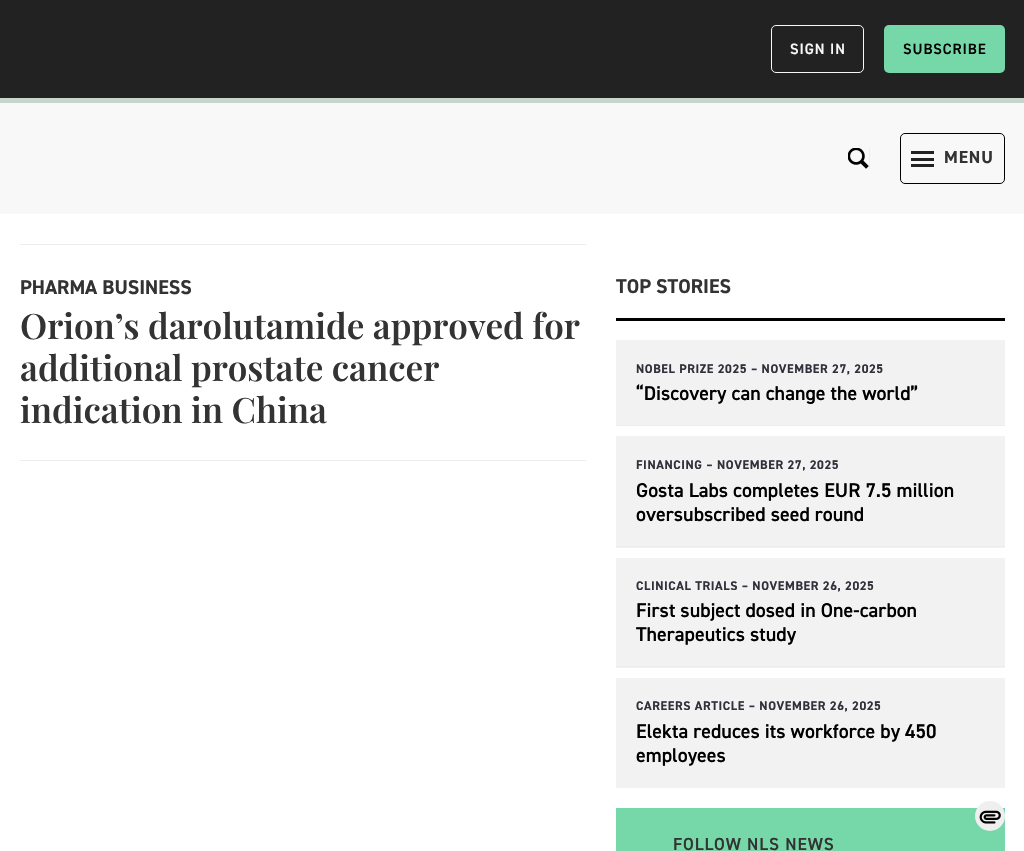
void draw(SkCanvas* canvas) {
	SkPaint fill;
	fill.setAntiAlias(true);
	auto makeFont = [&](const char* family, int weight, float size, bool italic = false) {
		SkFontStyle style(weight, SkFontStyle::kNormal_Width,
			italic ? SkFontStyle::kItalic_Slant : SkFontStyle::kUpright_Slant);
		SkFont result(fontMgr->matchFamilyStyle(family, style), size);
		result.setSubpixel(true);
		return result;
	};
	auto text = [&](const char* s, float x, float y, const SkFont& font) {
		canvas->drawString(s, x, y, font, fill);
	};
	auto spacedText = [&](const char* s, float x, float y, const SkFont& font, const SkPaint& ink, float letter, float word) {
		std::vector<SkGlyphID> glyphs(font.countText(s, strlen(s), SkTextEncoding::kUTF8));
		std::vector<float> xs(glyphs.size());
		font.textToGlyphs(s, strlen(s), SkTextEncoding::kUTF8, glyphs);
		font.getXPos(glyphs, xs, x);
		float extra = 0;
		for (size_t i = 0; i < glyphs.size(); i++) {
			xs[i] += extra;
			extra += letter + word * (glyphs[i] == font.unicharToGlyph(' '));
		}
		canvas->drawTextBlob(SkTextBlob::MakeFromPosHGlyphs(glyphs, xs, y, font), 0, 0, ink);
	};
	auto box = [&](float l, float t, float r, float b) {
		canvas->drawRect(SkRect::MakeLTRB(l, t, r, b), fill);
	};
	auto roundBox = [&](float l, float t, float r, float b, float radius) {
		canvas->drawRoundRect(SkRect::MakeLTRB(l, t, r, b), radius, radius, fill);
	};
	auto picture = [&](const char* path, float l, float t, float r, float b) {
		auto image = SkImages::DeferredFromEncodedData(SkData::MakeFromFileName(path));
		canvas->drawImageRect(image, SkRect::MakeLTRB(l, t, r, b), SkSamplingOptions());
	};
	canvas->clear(0xFFFFFFFF);
	fill.setColor(0xFF222222);
	box(0, 0, 1024, 98);
	fill.setStyle(SkPaint::kStroke_Style);
	fill.setStrokeWidth(1);
	fill.setColor(0xFFF8F8F8);
	canvas->drawRoundRect(SkRect::MakeLTRB(771.5f, 25.5f, 863.5f, 72.5f), 4.5f, 4.5f, fill);
	fill.setStyle(SkPaint::kFill_Style);
	fill.setColor(0xFF76D8A8);
	roundBox(884, 25, 1005, 73, 5);
	fill.setColor(0xFFF8F8F8);
	box(0, 103, 1024, 214);
	fill.setColor(0xFFC8D5CD);
	box(0, 98, 1024, 103);
	picture("image0.png", 848, 148, 869, 169);
	fill.setColor(0xFFEDEDED);
	box(869, 148, 870, 169);
	fill.setStyle(SkPaint::kStroke_Style);
	fill.setColor(0xFF000000);
	canvas->drawRoundRect(SkRect::MakeLTRB(900.5f, 133.5f, 1004.5f, 183.5f), 4.5f, 4.5f, fill);
	fill.setStyle(SkPaint::kFill_Style);
	fill.setColor(0xFF222222);
	box(911, 151, 934, 154);
	box(911, 158, 934, 161);
	box(911, 164, 934, 167);
	fill.setColor(0xFFEDEDED);
	box(20, 244, 586, 245);
	box(20, 460, 586, 461);
	fill.setColor(0xFF000000);
	box(616, 318, 1005, 321);
	fill.setColor(0xFFF2F2F2);
	box(616, 340, 1005, 425);
	fill.setColor(0xFFEDEDED);
	box(616, 425, 1005, 426);
	fill.setColor(0xFFF2F2F2);
	box(616, 436, 1005, 548);
	fill.setColor(0xFFEDEDED);
	box(616, 546, 1005, 547);
	fill.setColor(0xFFF2F2F2);
	box(616, 558, 1005, 668);
	fill.setColor(0xFFEDEDED);
	box(616, 666, 1005, 667);
	fill.setColor(0xFFF2F2F2);
	box(616, 678, 1005, 788);
	fill.setColor(0xFF76D8A8);
	box(616, 808, 1005, 851);
	fill.setColor(0xFFEFEFEF);
	canvas->drawCircle(990, 816, 15, fill);
	picture("image1.png", 979, 810, 1001, 824);
	auto font1 = makeFont("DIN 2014", 600, 15);
	fill.setColor(0xFFF8F8F8);
	spacedText("SIGN IN", 790, 54, font1, fill, 0.9f, 0);
	fill.setColor(0xFF000000);
	spacedText("SUBSCRIBE", 903, 54, font1, fill, 0.9f, 0);
	auto font2 = makeFont("DIN 2014", 700, 17.5f);
	fill.setColor(0xFF333333);
	spacedText("MENU", 944, 163, font2, fill, 0.9f, 0);
	auto font3 = makeFont("DIN 2014", 700, 20);
	text("PHARMA BUSINESS", 20, 294, font3);
	auto font4 = makeFont("Playfair Display", 600, 35);
	text("Orion’s darolutamide approved for", 20, 339, font4);
	text("additional prostate cancer", 20, 381, font4);
	text("indication in China", 20, 423, font4);
	text("TOP STORIES", 616, 293, font3);
	auto font5 = makeFont("DIN 2014", 700, 12.5f);
	fill.setColor(0xFF31313B);
	spacedText("NOBEL PRIZE 2025 – NOVEMBER 27, 2025", 636, 373, font5, fill, 0.6f, 0);
	auto font6 = makeFont("DIN 2014", 600, 20);
	fill.setColor(0xFF000000);
	text("“Discovery can change the world”", 636, 400, font6);
	fill.setColor(0xFF31313B);
	spacedText("FINANCING – NOVEMBER 27, 2025", 636, 469, font5, fill, 0.6f, 0);
	fill.setColor(0xFF000000);
	text("Gosta Labs completes EUR 7.5 million", 636, 497, font6);
	text("oversubscribed seed round", 636, 521, font6);
	fill.setColor(0xFF31313B);
	spacedText("CLINICAL TRIALS – NOVEMBER 26, 2025", 636, 590, font5, fill, 0.6f, 0);
	fill.setColor(0xFF000000);
	text("First subject dosed in One-carbon", 636, 617, font6);
	text("Therapeutics study", 636, 641, font6);
	fill.setColor(0xFF31313B);
	spacedText("CAREERS ARTICLE – NOVEMBER 26, 2025", 636, 710, font5, fill, 0.6f, 0);
	fill.setColor(0xFF000000);
	text("Elekta reduces its workforce by 450", 636, 738, font6);
	text("employees", 636, 762, font6);
	auto font7 = makeFont("DIN 2014", 600, 17.5f);
	fill.setColor(0xFF333333);
	spacedText("FOLLOW NLS NEWS", 673, 850, font7, fill, 0.9f, 0);
}
